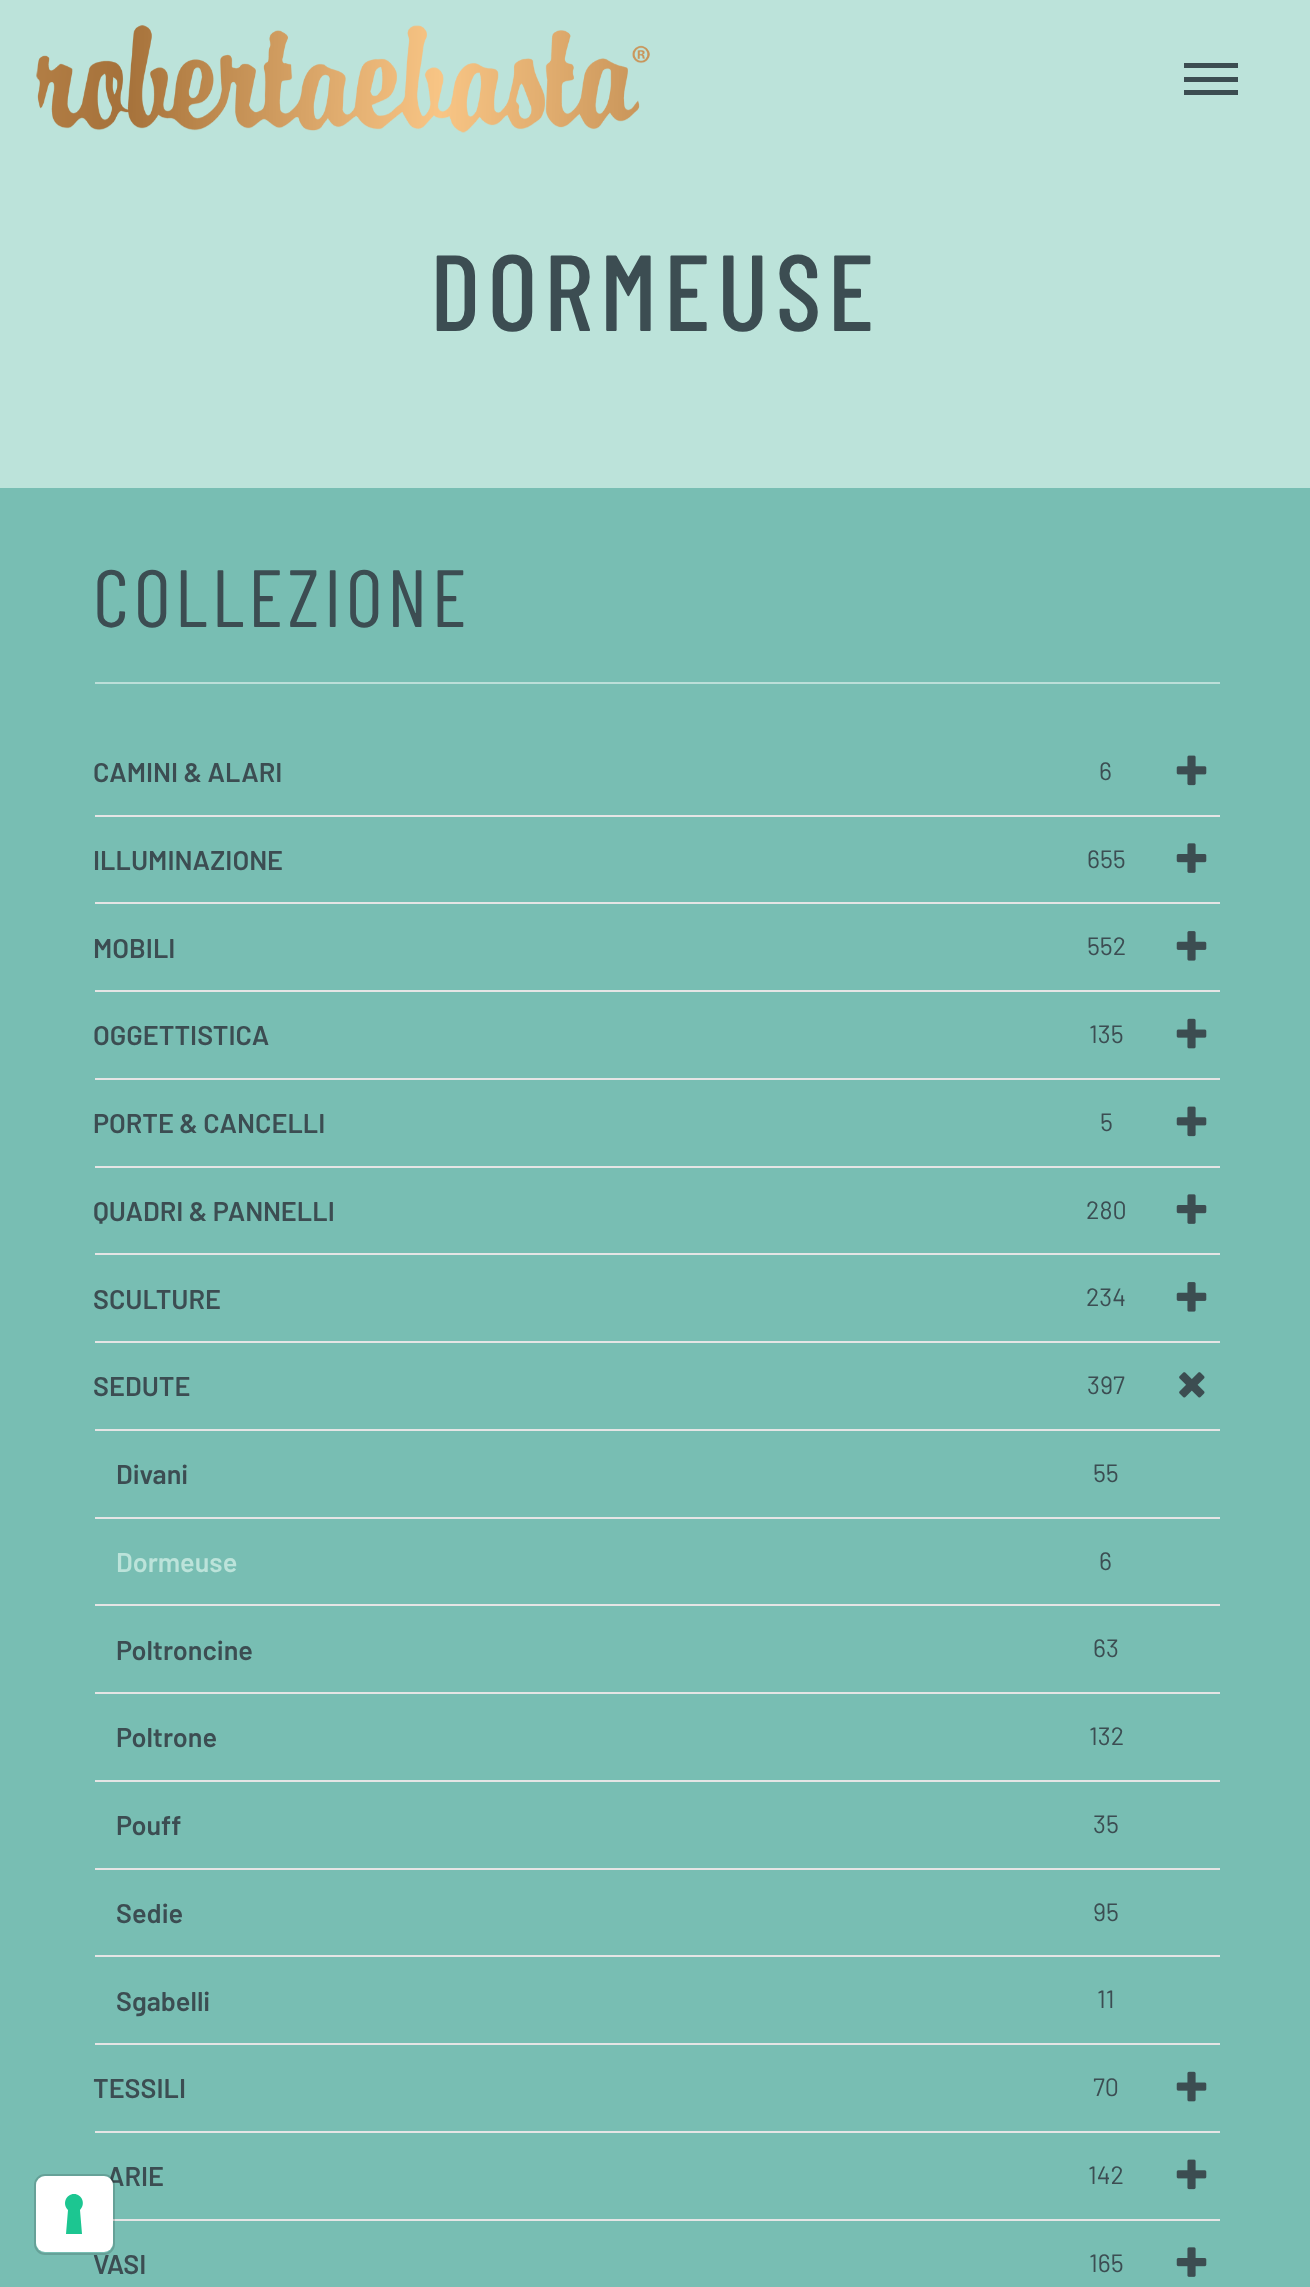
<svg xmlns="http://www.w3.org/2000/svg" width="1310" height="2287">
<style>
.a{font:500 108px Barlow Condensed;letter-spacing:6.75px;fill:#3c4d52}
.b{font:81px Barlow Condensed;letter-spacing:4.5px;fill:#3c4d52}
.c{font:600 27px Barlow;fill:#3c4d52}
.d{font:25px Barlow;fill:#3c4d52}
.e{font:600 27px Barlow;fill:#bce3da}
</style>
<rect width="100%" height="100%" fill="#bce3da"/>
<image href="1.png" x="36" y="25" width="614" height="108"/>
<path fill="#3c4d51" d="M1184 63h54v5H1184z"/>
<path fill="#3c4d51" d="M1184 77h54v5H1184z"/>
<path fill="#3c4d51" d="M1184 90h54v5H1184z"/>
<path fill="#78beb3" d="M0 488h1310v1799H0z"/>
<path fill="#bcdfd9" d="M95 682h1125v2H95z"/>
<path fill="#e5e5e5" d="M95 815h1125v2H95z"/>
<image href="2.png" x="1176" y="755" width="31" height="31"/>
<path fill="#e5e5e5" d="M95 902h1125v2H95z"/>
<image href="3.png" x="1176" y="843" width="31" height="30"/>
<path fill="#e5e5e5" d="M95 990h1125v2H95z"/>
<image href="4.png" x="1176" y="931" width="31" height="30"/>
<path fill="#e5e5e5" d="M95 1078h1125v2H95z"/>
<image href="5.png" x="1176" y="1018" width="31" height="31"/>
<path fill="#e5e5e5" d="M95 1166h1125v2H95z"/>
<image href="2.png" x="1176" y="1106" width="31" height="31"/>
<path fill="#e5e5e5" d="M95 1253h1125v2H95z"/>
<image href="3.png" x="1176" y="1194" width="31" height="30"/>
<path fill="#e5e5e5" d="M95 1341h1125v2H95z"/>
<image href="4.png" x="1176" y="1282" width="31" height="30"/>
<path fill="#e5e5e5" d="M95 1429h1125v2H95z"/>
<image href="6.png" x="1179" y="1372" width="26" height="26"/>
<path fill="#e5e5e5" d="M95 1517h1125v2H95z"/>
<path fill="#e5e5e5" d="M95 1604h1125v2H95z"/>
<path fill="#e5e5e5" d="M95 1692h1125v2H95z"/>
<path fill="#e5e5e5" d="M95 1780h1125v2H95z"/>
<path fill="#e5e5e5" d="M95 1868h1125v2H95z"/>
<path fill="#e5e5e5" d="M95 1955h1125v2H95z"/>
<path fill="#e5e5e5" d="M95 2043h1125v2H95z"/>
<path fill="#e5e5e5" d="M95 2131h1125v2H95z"/>
<image href="5.png" x="1176" y="2071" width="31" height="31"/>
<path fill="#e5e5e5" d="M113 2219h1107v2H113z"/>
<image href="2.png" x="1176" y="2159" width="31" height="31"/>
<image href="3.png" x="1176" y="2247" width="31" height="30"/>
<text class="a" x="430" y="331">DORMEUSE</text>
<text class="b" x="93" y="627">COLLEZIONE</text>
<text class="c" x="93" y="782">CAMINI &amp; ALARI</text>
<text class="d" x="1099" y="780">6</text>
<text class="c" x="93" y="870">ILLUMINAZIONE</text>
<text class="d" x="1087" y="868">655</text>
<text class="c" x="93" y="958">MOBILI</text>
<text class="d" x="1087" y="955">552</text>
<text class="c" x="93" y="1045">OGGETTISTICA</text>
<text class="d" x="1089" y="1043">135</text>
<text class="c" x="93" y="1133">PORTE &amp; CANCELLI</text>
<text class="d" x="1100" y="1131">5</text>
<text class="c" x="93" y="1221">QUADRI &amp; PANNELLI</text>
<text class="d" x="1086" y="1219">280</text>
<text class="c" x="93" y="1309">SCULTURE</text>
<text class="d" x="1086" y="1306">234</text>
<text class="c" x="93" y="1396">SEDUTE</text>
<text class="d" x="1087" y="1394">397</text>
<text class="c" x="116" y="1484">Divani</text>
<text class="d" x="1093" y="1482">55</text>
<text class="e" x="116" y="1572">Dormeuse</text>
<text class="d" x="1099" y="1570">6</text>
<text class="c" x="116" y="1660">Poltroncine</text>
<text class="d" x="1093" y="1657">63</text>
<text class="c" x="116" y="1747">Poltrone</text>
<text class="d" x="1089" y="1745">132</text>
<text class="c" x="116" y="1835">Pouff</text>
<text class="d" x="1093" y="1833">35</text>
<text class="c" x="116" y="1923">Sedie</text>
<text class="d" x="1093" y="1921">95</text>
<text class="c" x="116" y="2011">Sgabelli</text>
<text class="d" x="1097" y="2008">11</text>
<text class="c" x="93" y="2098">TESSILI</text>
<text class="d" x="1093" y="2096">70</text>
<text class="c" x="107" y="2186">ARIE</text>
<text class="d" x="1088" y="2184">142</text>
<text class="c" x="93" y="2274">VASI</text>
<rect fill="none" stroke="#00000026" stroke-width="2" x="35" y="2175" width="79" height="79" rx="10"/>
<rect fill="#fff" x="36" y="2176" width="77" height="76" rx="9"/>
<path fill="#1cc691" fill-rule="evenodd" d="M74 2194c8 0 12 10 6 16l2 24h-16l2-24c-6-6-2-16 6-16z"/>
<text class="d" x="1089" y="2272">165</text>
</svg>
